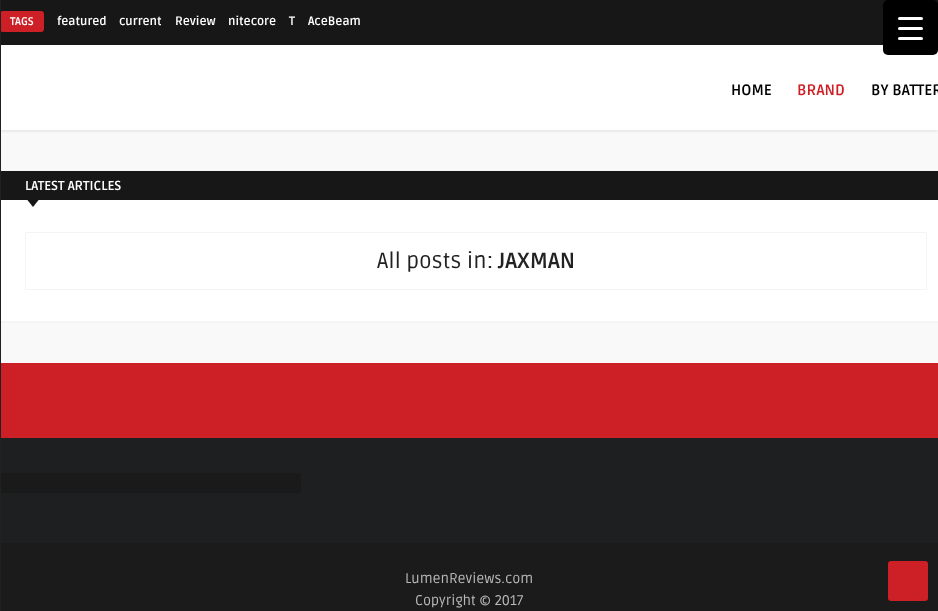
<svg xmlns="http://www.w3.org/2000/svg" width="938" height="611">
<style>
.a{font:bold 11px Ruda;fill:#fff}
.b{font:bold 12px Ruda;fill:#fff}
.c{font:bold 15px Ruda;fill:#000}
.d{font:bold 15px Ruda;fill:#cd2026}
.e{font:bold 13px Ruda;fill:#fff}
.f{font:22px Ruda;fill:#222}
.g{font:bold 22px Ruda;fill:#222}
.h{font:14px Ruda;fill:#b9b9b9}
</style>
<rect width="100%" height="100%" fill="#f9f9f9"/>
<path fill="#0000001a" filter="blur(1.5px)" d="M0 1h938v130H0z"/>
<path fill="#171717" d="M1 0h937v45H1z"/>
<rect fill="#cd2026" y="11" width="44" height="21" rx="3"/>
<path fill="#fff" d="M1 200h937v122H1z"/>
<path fill="none" stroke="#f4f4f4" d="M0.5 170.5h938v152H0.5z"/>
<path fill="#f1f1f1cc" d="M0 321h938v1H0z"/>
<path fill="#212121" d="M0 0h1v611H0z"/>
<path fill="#fff" d="M1 45h937v85H1z"/>
<rect fill="#000" x="883" width="55" height="55" rx="5"/>
<rect fill="#fff" x="898" y="27" width="25" height="3" rx="1.5"/>
<rect fill="#fff" x="898" y="17" width="25" height="3" rx="1.5"/>
<rect fill="#fff" x="898" y="37" width="25" height="3" rx="1.5"/>
<path fill="#171717" d="M1 171h937v29H1z"/>
<path fill="#171717" d="M25 197h16l-8 10z"/>
<path fill="none" stroke="#f4f4f4" d="M25.5 232.5h901v57H25.5z"/>
<path fill="#1e1f20" d="M1 438h937v105H1z"/>
<path fill="#cd2026" d="M1 363h937v75H1z"/>
<path fill="#1a1a1b" d="M1 473h300v20H1z"/>
<path fill="#1b1b1c" d="M1 543h937v68H1z"/>
<rect fill="#cd2026" x="888" y="561" width="40" height="40" rx="3"/>
<text class="a" x="10" y="25">TAGS</text>
<text class="b" x="57" y="25">featured</text>
<text class="b" x="119" y="25">current</text>
<text class="b" x="175" y="25">Review</text>
<text class="b" x="228" y="25">nitecore</text>
<text class="b" x="289" y="25">T</text>
<text class="b" x="308" y="25">AceBeam</text>
<text class="c" x="731" y="95">HOME</text>
<text class="d" x="797" y="95">BRAND</text>
<text class="c" x="871" y="95">BY BATTER</text>
<text class="e" x="25" y="190">LATEST ARTICLES</text>
<text class="f" x="377" y="268">All posts in:</text>
<text class="g" x="498" y="268">JAXMAN</text>
<text class="h" x="405" y="583">LumenReviews.com</text>
<text class="h" x="415" y="605">Copyright © 2017</text>
</svg>
